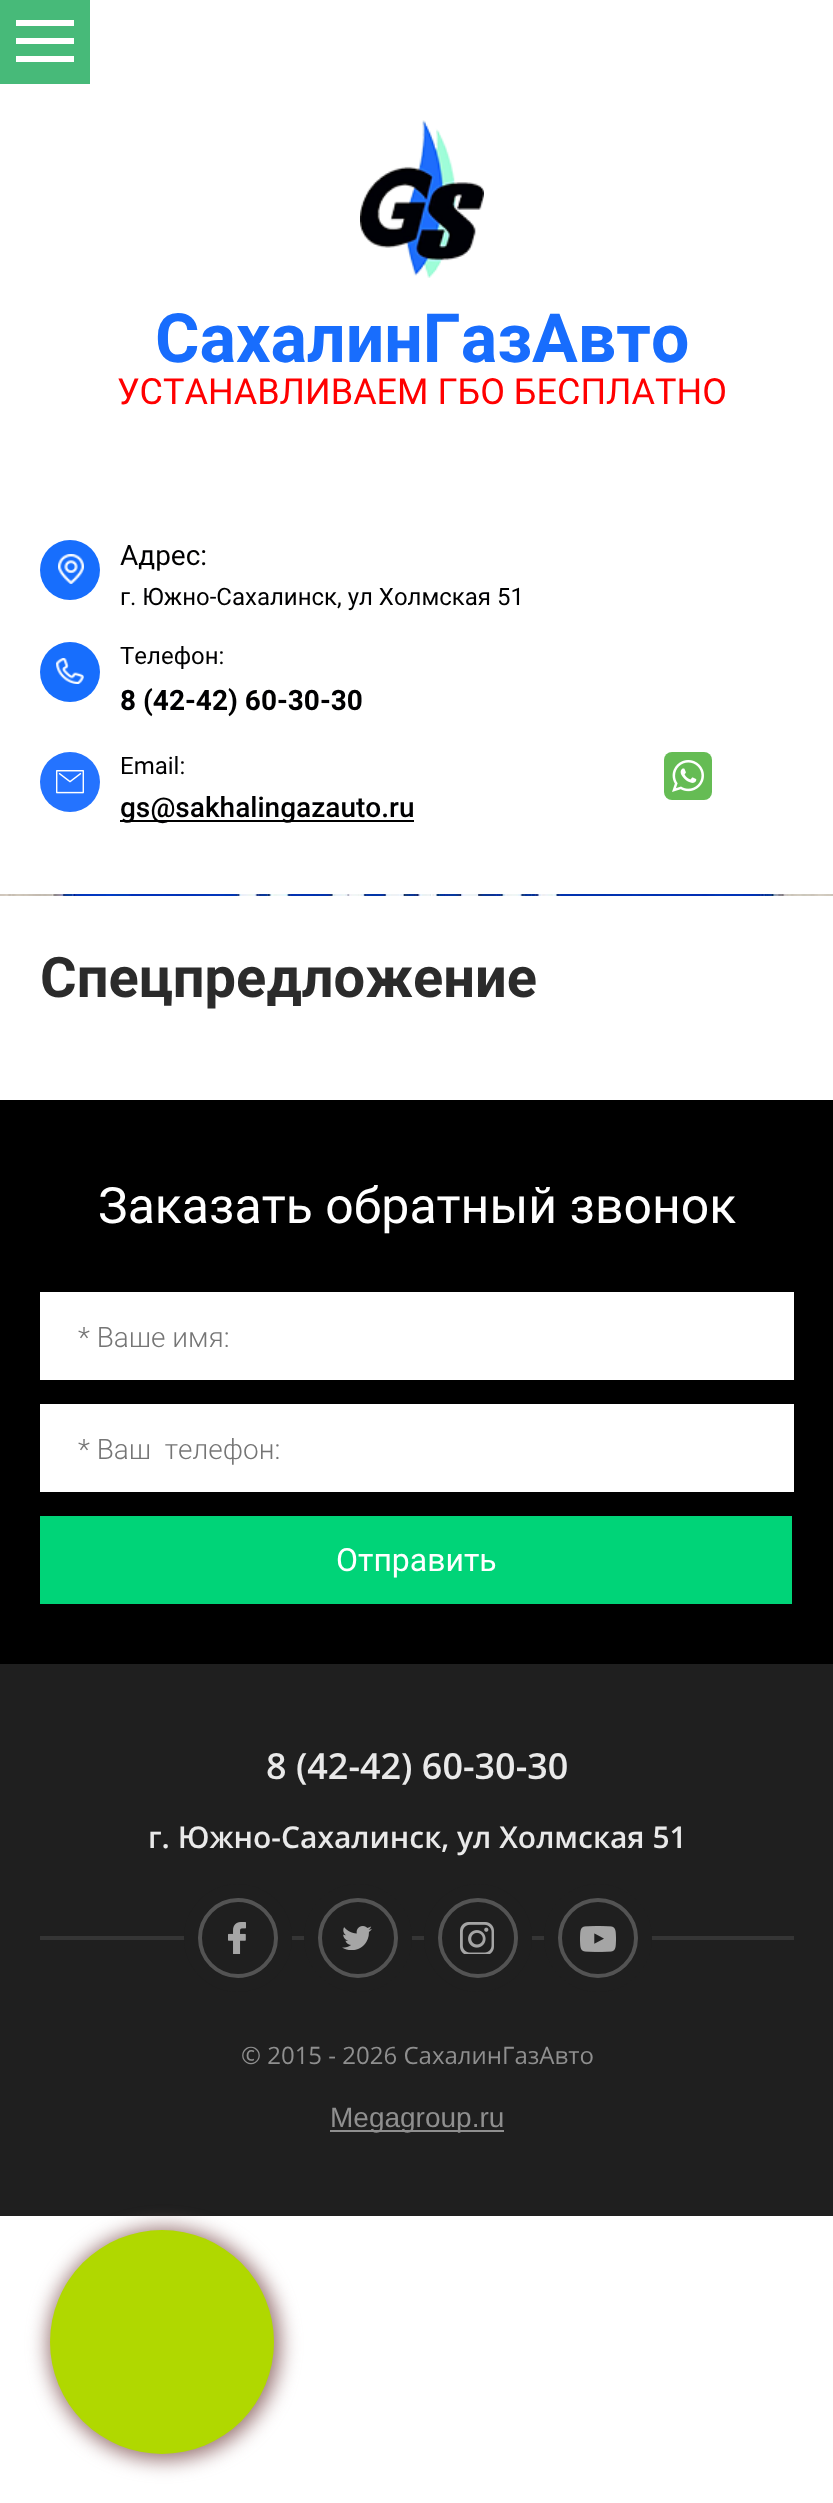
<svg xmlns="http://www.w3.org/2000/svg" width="833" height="2503">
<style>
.a{font:bold 68px Roboto;fill:#186dfd}
.b{font:36px Roboto;fill:#f00}
.c{font:28px Roboto;fill:#000001}
.d{font:24px Roboto;fill:#000001}
.e{font:bold 28px Roboto;fill:#000001}
.f{font:500 28px Roboto;fill:#000001}
.g{font:bold 56px Roboto;fill:#2b2b2b}
.h{font:50px Roboto;fill:#fff}
.i{font:300 28px Roboto;fill:#757575}
.j{font:32px Roboto;fill:#fff}
.k{font:600 36px Open Sans;fill:#e9e9e9}
.l{font:600 30px Open Sans;fill:#e9e9e9}
.m{font:24px Open Sans;fill:#8f8f8f}
.n{font:28px Liberation Sans;fill:#8f8f8f}
</style>
<rect width="100%" height="100%" fill="#fff"/>
<path fill="#47ba79" d="M0 0h90v84H0z"/>
<path fill="#fff" d="M16 20h58v6H16z"/>
<path fill="#fff" d="M16 38h58v6H16z"/>
<path fill="#fff" d="M16 56h58v6H16z"/>
<image href="1.png" x="360" y="120" width="124" height="158"/>
<circle fill="#176efd" cx="70" cy="570" r="30"/>
<image href="2.png" x="58" y="554" width="26" height="30"/>
<circle fill="#176efd" cx="70" cy="672" r="30"/>
<image href="3.png" x="56" y="658" width="28" height="26"/>
<circle fill="#2473ff" cx="70" cy="782" r="30"/>
<image href="4.png" x="56" y="770" width="28" height="24"/>
<path fill="#000" d="M120 820h294v2H120z"/>
<rect fill="#65bc54" x="664" y="752" width="48" height="48" rx="8"/>
<image href="5.png" x="672" y="760" width="32" height="32"/>
<image href="6.png" x="0" y="894" width="833" height="2"/>
<path fill="#000" d="M0 1100h833v564H0z"/>
<path fill="#fff" d="M40 1292h754v88H40z"/>
<path fill="#fff" d="M40 1404h754v88H40z"/>
<path fill="#00d478" d="M40 1516h752v88H40z"/>
<path fill="#1f1f1f" d="M0 1664h833v552H0z"/>
<path fill="#353535" d="M40 1936h754v4H40z"/>
<circle fill="none" stroke="#1f1f1f" stroke-width="14" cx="238" cy="1938" r="47"/>
<circle fill="#1f1f1f" cx="238" cy="1938" r="40"/>
<image href="7.png" x="228" y="1922" width="18" height="32"/>
<circle fill="none" stroke="#535353" stroke-width="4" cx="238" cy="1938" r="38"/>
<circle fill="none" stroke="#1f1f1f" stroke-width="14" cx="358" cy="1938" r="47"/>
<circle fill="#1f1f1f" cx="358" cy="1938" r="40"/>
<image href="8.png" x="342" y="1926" width="30" height="24"/>
<circle fill="none" stroke="#535353" stroke-width="4" cx="358" cy="1938" r="38"/>
<circle fill="none" stroke="#1f1f1f" stroke-width="14" cx="478" cy="1938" r="47"/>
<circle fill="#1f1f1f" cx="478" cy="1938" r="40"/>
<image href="9.png" x="460" y="1922" width="34" height="32"/>
<circle fill="none" stroke="#535353" stroke-width="4" cx="478" cy="1938" r="38"/>
<circle fill="none" stroke="#1f1f1f" stroke-width="14" cx="598" cy="1938" r="47"/>
<circle fill="#1f1f1f" cx="598" cy="1938" r="40"/>
<image href="10.png" x="580" y="1926" width="36" height="26"/>
<circle fill="none" stroke="#535353" stroke-width="4" cx="598" cy="1938" r="38"/>
<path fill="#8f8f8f" d="M330 2130h174v2H330z"/>
<rect fill="#987373" filter="blur(10px)" x="48" y="2228" width="232" height="232" rx="116"/>
<circle fill="#b0d800" cx="162" cy="2342" r="112"/>
<text class="a" x="155" y="362">СахалинГазАвто</text>
<text class="b" x="117" y="404">УСТАНАВЛИВАЕМ ГБО БЕСПЛАТНО</text>
<text class="c" x="120" y="565">Адрес:</text>
<text class="d" x="120" y="605">г. Южно-Сахалинск, ул Холмская 51</text>
<text class="d" x="120" y="664">Телефон:</text>
<text class="e" x="120" y="710">8 (42-42) 60-30-30</text>
<text class="d" x="120" y="774">Email:</text>
<text class="f" x="120" y="817">gs@sakhalingazauto.ru</text>
<text class="g" x="40" y="997">Спецпредложение</text>
<text class="h" x="98" y="1223">Заказать обратный звонок</text>
<text class="i" x="78" y="1347">* Ваше имя:</text>
<text class="i" xml:space="preserve" x="78" y="1459">* Ваш  телефон:</text>
<text class="j" x="336" y="1571">Отправить</text>
<text class="k" x="266" y="1779">8 (42-42) 60-30-30</text>
<text class="l" x="148" y="1848">г. Южно-Сахалинск, ул Холмская 51</text>
<text class="m" x="241" y="2064">© 2015 - 2026 СахалинГазАвто</text>
<text class="n" x="330" y="2127">Megagroup.ru</text>
</svg>
